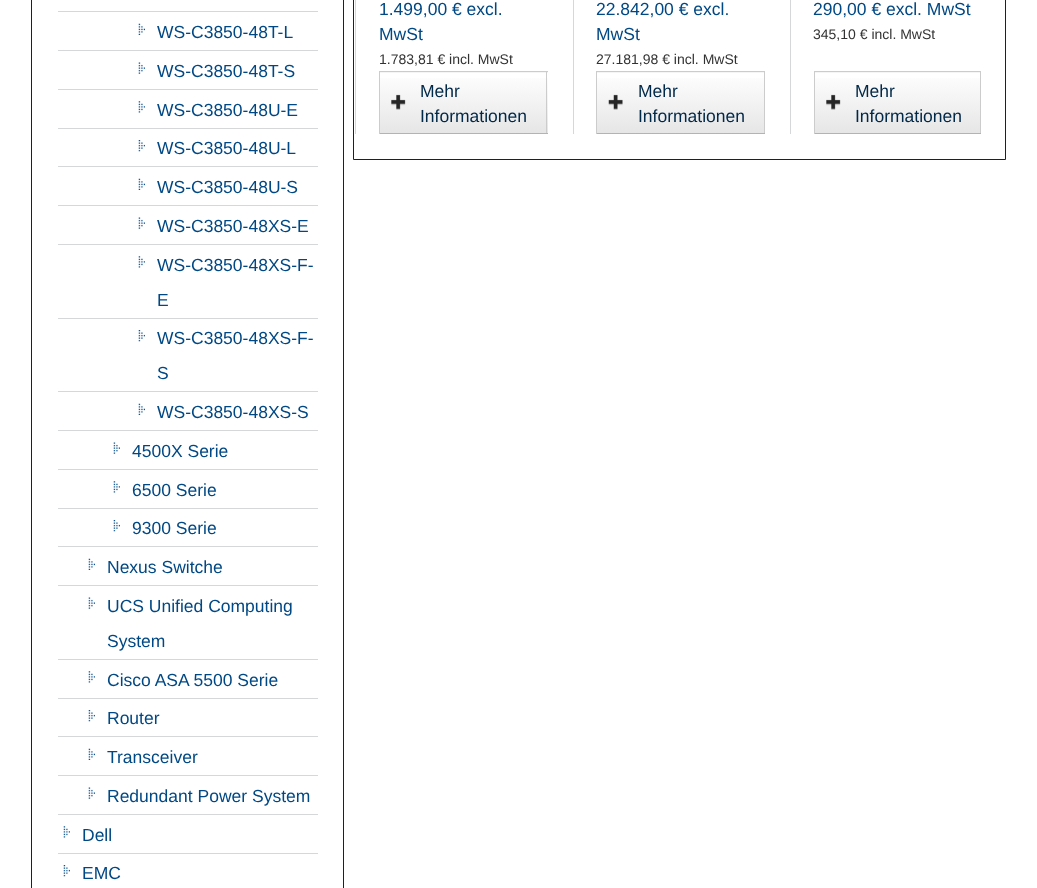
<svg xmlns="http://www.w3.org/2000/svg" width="1037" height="888">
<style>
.a{font:17.5px Liberation Sans;fill:#004884}
.b{font:14px Liberation Sans;fill:#323232}
.c{font:17.5px Liberation Sans;fill:#002848}
</style>
<defs>
<linearGradient id="g1" gradientUnits="userSpaceOnUse" x1="463" y1="72" x2="463" y2="133"><stop offset="0" stop-color="#fff"/><stop offset="1" stop-color="#e6e6e6"/></linearGradient>
<linearGradient id="g2" gradientUnits="userSpaceOnUse" x1="681" y1="72" x2="681" y2="133"><stop offset="0" stop-color="#fff"/><stop offset="1" stop-color="#e6e6e6"/></linearGradient>
<linearGradient id="g3" gradientUnits="userSpaceOnUse" x1="898" y1="72" x2="898" y2="133"><stop offset="0" stop-color="#fff"/><stop offset="1" stop-color="#e6e6e6"/></linearGradient>
</defs>
<rect width="100%" height="100%" fill="#fff"/>
<path fill="none" stroke="#002848" d="M31.5 -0.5h312v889H31.5z"/>
<image href="1.png" x="138" y="23" width="7" height="12"/>
<path fill="#d6d7d8" d="M58 11h260v1H58z"/>
<image href="2.png" x="138" y="62" width="7" height="12"/>
<path fill="#d6d7d8" d="M58 50h260v1H58z"/>
<image href="3.png" x="138" y="101" width="7" height="12"/>
<path fill="#d6d7d8" d="M58 89h260v1H58z"/>
<image href="4.png" x="138" y="140" width="7" height="12"/>
<path fill="#d6d7d8" d="M58 128h260v1H58z"/>
<image href="1.png" x="138" y="178" width="7" height="12"/>
<path fill="#d6d7d8" d="M58 166h260v1H58z"/>
<image href="2.png" x="138" y="217" width="7" height="12"/>
<path fill="#d6d7d8" d="M58 205h260v1H58z"/>
<image href="3.png" x="138" y="256" width="7" height="12"/>
<path fill="#d6d7d8" d="M58 244h260v1H58z"/>
<image href="4.png" x="138" y="330" width="7" height="12"/>
<path fill="#d6d7d8" d="M58 318h260v1H58z"/>
<image href="1.png" x="138" y="403" width="7" height="12"/>
<path fill="#d6d7d8" d="M58 391h260v1H58z"/>
<image href="2.png" x="113" y="442" width="7" height="12"/>
<path fill="#d6d7d8" d="M58 430h260v1H58z"/>
<image href="3.png" x="113" y="481" width="7" height="12"/>
<path fill="#d6d7d8" d="M58 469h260v1H58z"/>
<image href="4.png" x="113" y="520" width="7" height="12"/>
<path fill="#d6d7d8" d="M58 508h260v1H58z"/>
<image href="1.png" x="88" y="558" width="7" height="12"/>
<path fill="#d6d7d8" d="M58 546h260v1H58z"/>
<image href="2.png" x="88" y="597" width="7" height="12"/>
<path fill="#d6d7d8" d="M58 585h260v1H58z"/>
<image href="3.png" x="88" y="671" width="7" height="12"/>
<path fill="#d6d7d8" d="M58 659h260v1H58z"/>
<image href="4.png" x="88" y="710" width="7" height="12"/>
<path fill="#d6d7d8" d="M58 698h260v1H58z"/>
<image href="1.png" x="88" y="748" width="7" height="12"/>
<path fill="#d6d7d8" d="M58 736h260v1H58z"/>
<image href="2.png" x="88" y="787" width="7" height="12"/>
<path fill="#d6d7d8" d="M58 775h260v1H58z"/>
<image href="5.png" x="63" y="826" width="7" height="12"/>
<path fill="#d6d7d8" d="M58 814h260v1H58z"/>
<image href="6.png" x="63" y="865" width="7" height="12"/>
<path fill="#d6d7d8" d="M58 853h260v1H58z"/>
<path fill="none" stroke="#002848" d="M353.5 -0.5h652v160H353.5z"/>
<path fill="#d6d7d8" d="M355 0h1v134H355z"/>
<path fill="#d6d7d8" d="M573 0h1v134H573z"/>
<path fill="#f5f5f5" d="M380 72h168v1H380z"/>
<path fill="url(#g1)" d="M380 78h168v55H380z"/>
<path fill="#ccc" d="M379 71h169v1H379z"/>
<path fill="#ccc" d="M546 71h1v63H546z"/>
<path fill="#b3b3b3" d="M379 133h169v1H379z"/>
<path fill="#ccc" d="M379 71h1v63H379z"/>
<image href="7.png" x="391" y="94" width="15" height="16"/>
<path fill="#d6d7d8" d="M790 0h1v134H790z"/>
<path fill="#f5f5f5" d="M597 72h167v1H597z"/>
<path fill="url(#g2)" d="M597 78h167v55H597z"/>
<path fill="#ccc" d="M596 71h169v1H596z"/>
<path fill="#ccc" d="M764 71h1v63H764z"/>
<path fill="#b3b3b3" d="M596 133h169v1H596z"/>
<path fill="#ccc" d="M596 71h1v63H596z"/>
<image href="8.png" x="608" y="94" width="15" height="16"/>
<path fill="#f5f5f5" d="M815 72h165v1H815z"/>
<path fill="url(#g3)" d="M815 78h165v55H815z"/>
<path fill="#ccc" d="M814 71h167v1H814z"/>
<path fill="#ccc" d="M980 71h1v63H980z"/>
<path fill="#b3b3b3" d="M814 133h167v1H814z"/>
<path fill="#ccc" d="M814 71h1v63H814z"/>
<image href="7.png" x="826" y="94" width="15" height="16"/>
<text class="a" x="157" y="38">WS-C3850-48T-L</text>
<text class="a" x="157" y="77">WS-C3850-48T-S</text>
<text class="a" x="157" y="116">WS-C3850-48U-E</text>
<text class="a" x="157" y="154">WS-C3850-48U-L</text>
<text class="a" x="157" y="193">WS-C3850-48U-S</text>
<text class="a" x="157" y="232">WS-C3850-48XS-E</text>
<text class="a" x="157" y="271">WS-C3850-48XS-F-</text>
<text class="a" x="157" y="306">E</text>
<text class="a" x="157" y="344">WS-C3850-48XS-F-</text>
<text class="a" x="157" y="379">S</text>
<text class="a" x="157" y="418">WS-C3850-48XS-S</text>
<text class="a" x="132" y="457">4500X Serie</text>
<text class="a" x="132" y="496">6500 Serie</text>
<text class="a" x="132" y="534">9300 Serie</text>
<text class="a" x="107" y="573">Nexus Switche</text>
<text class="a" x="107" y="612">UCS Unified Computing</text>
<text class="a" x="107" y="647">System</text>
<text class="a" x="107" y="686">Cisco ASA 5500 Serie</text>
<text class="a" x="107" y="724">Router</text>
<text class="a" x="107" y="763">Transceiver</text>
<text class="a" x="107" y="802">Redundant Power System</text>
<text class="a" x="82" y="841">Dell</text>
<text class="a" x="82" y="879">EMC</text>
<text class="a" x="379" y="15">1.499,00 € excl.</text>
<text class="a" x="379" y="40">MwSt</text>
<text class="b" x="379" y="64">1.783,81 € incl. MwSt</text>
<text class="c" x="420" y="97">Mehr</text>
<text class="c" x="420" y="122">Informationen</text>
<text class="a" x="596" y="15">22.842,00 € excl.</text>
<text class="a" x="596" y="40">MwSt</text>
<text class="b" x="596" y="64">27.181,98 € incl. MwSt</text>
<text class="c" x="638" y="97">Mehr</text>
<text class="c" x="638" y="122">Informationen</text>
<text class="a" x="813" y="15">290,00 € excl. MwSt</text>
<text class="b" x="813" y="39">345,10 € incl. MwSt</text>
<text class="c" x="855" y="97">Mehr</text>
<text class="c" x="855" y="122">Informationen</text>
</svg>
